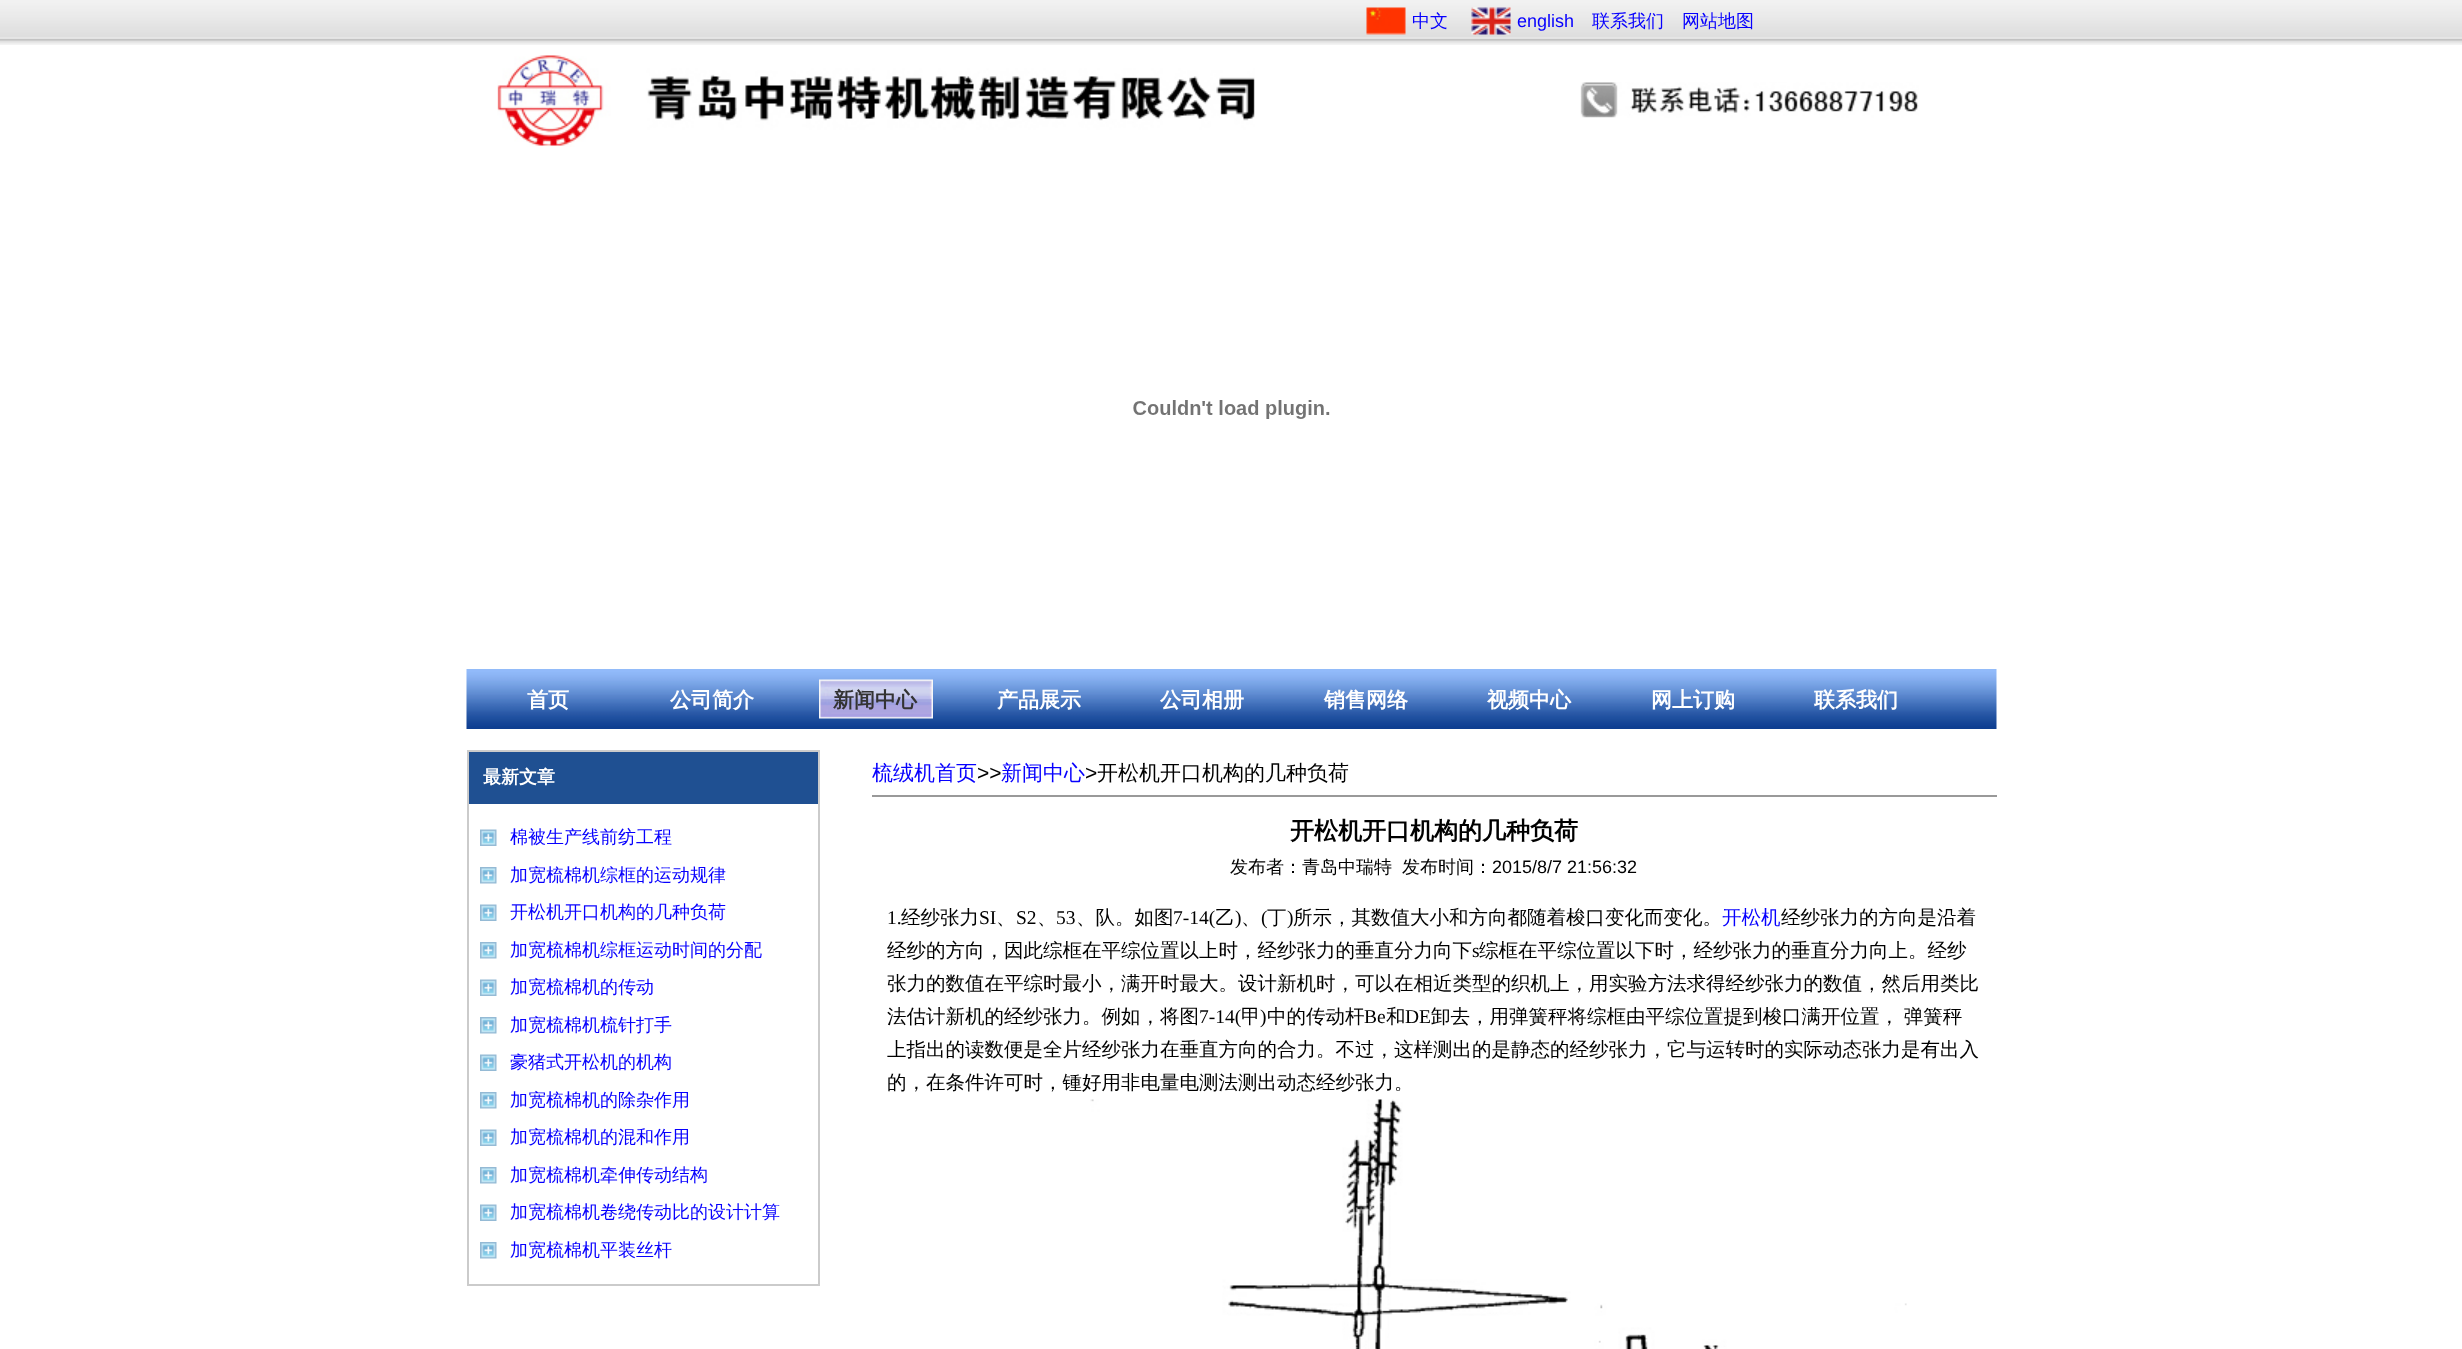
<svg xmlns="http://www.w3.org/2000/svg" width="2462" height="1349">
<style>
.a{font:500 18px WenQuanYi Zen Hei;fill:#0700fe}
.b{font:18px Liberation Sans;fill:#0700fe}
.c{font:bold 21px WenQuanYi Zen Hei;fill:#fff}
.d{font:bold 21px WenQuanYi Zen Hei;fill:#333}
.e{font:bold 18px WenQuanYi Zen Hei;fill:#fff}
.f{font:500 21px WenQuanYi Zen Hei;fill:#0700fe}
.g{font:21px Liberation Sans;fill:#000}
.h{font:500 21px WenQuanYi Zen Hei;fill:#000}
.i{font:bold 24px WenQuanYi Zen Hei;fill:#000}
.j{font:500 18px WenQuanYi Zen Hei;fill:#000}
.k{font:18px Liberation Sans;fill:#000}
.l{font:19.5px Liberation Serif;fill:#000}
.m{font:500 19.5px WenQuanYi Zen Hei;fill:#000}
.n{font:500 19.5px WenQuanYi Zen Hei;fill:#0700fe}
</style>
<rect width="100%" height="100%" fill="#fff"/>
<image href="1.png" x="0" y="0" width="2462" height="45"/>
<image href="2.png" x="1366" y="7" width="40" height="28"/>
<image href="3.png" x="1471" y="7" width="40" height="28"/>
<image href="4.png" x="497" y="55" width="758" height="92"/>
<image href="5.png" x="1580" y="82" width="339" height="36"/>
<image href="6.png" x="1133" y="400" width="197" height="19"/>
<image href="7.png" x="466" y="669" width="1531" height="60"/>
<image href="8.png" x="819" y="679" width="114" height="40"/>
<path fill="#1f5092" d="M469 752h349v52H469z"/>
<path fill="#cbcbcb" d="M467 750h352v2H467z"/>
<path fill="#cbcbcb" d="M818 750h2v536H818z"/>
<path fill="#cbcbcb" d="M467 750h2v54H467z"/>
<path fill="#cbcbcb" d="M467 1284h352v2H467z"/>
<path fill="#cbcbcb" d="M467 804h2v482H467z"/>
<image href="9.png" x="480" y="829" width="17" height="17"/>
<image href="10.png" x="480" y="867" width="17" height="17"/>
<image href="9.png" x="480" y="904" width="17" height="17"/>
<image href="10.png" x="480" y="942" width="17" height="17"/>
<image href="9.png" x="480" y="979" width="17" height="17"/>
<image href="10.png" x="480" y="1017" width="17" height="17"/>
<image href="9.png" x="480" y="1054" width="17" height="17"/>
<image href="10.png" x="480" y="1092" width="17" height="17"/>
<image href="9.png" x="480" y="1129" width="17" height="17"/>
<image href="10.png" x="480" y="1167" width="17" height="17"/>
<image href="9.png" x="480" y="1204" width="17" height="17"/>
<image href="10.png" x="480" y="1242" width="17" height="17"/>
<path fill="#999" d="M872 795h1125v2H872z"/>
<image href="11.png" x="1090" y="1099" width="817" height="250"/>
<text class="a" x="1412" y="27">中文</text>
<text class="b" x="1517" y="27">english</text>
<text class="a" x="1592" y="27">联系我们</text>
<text class="a" x="1682" y="27">网站地图</text>
<text class="c" x="527" y="707">首页</text>
<text class="c" x="670" y="707">公司简介</text>
<text class="d" x="833" y="707">新闻中心</text>
<text class="c" x="997" y="707">产品展示</text>
<text class="c" x="1160" y="707">公司相册</text>
<text class="c" x="1324" y="707">销售网络</text>
<text class="c" x="1487" y="707">视频中心</text>
<text class="c" x="1651" y="707">网上订购</text>
<text class="c" x="1814" y="707">联系我们</text>
<text class="e" x="483" y="783">最新文章</text>
<text class="a" x="510" y="843">棉被生产线前纺工程</text>
<text class="a" x="510" y="881">加宽梳棉机综框的运动规律</text>
<text class="a" x="510" y="918">开松机开口机构的几种负荷</text>
<text class="a" x="510" y="956">加宽梳棉机综框运动时间的分配</text>
<text class="a" x="510" y="993">加宽梳棉机的传动</text>
<text class="a" x="510" y="1031">加宽梳棉机梳针打手</text>
<text class="a" x="510" y="1068">豪猪式开松机的机构</text>
<text class="a" x="510" y="1106">加宽梳棉机的除杂作用</text>
<text class="a" x="510" y="1143">加宽梳棉机的混和作用</text>
<text class="a" x="510" y="1181">加宽梳棉机牵伸传动结构</text>
<text class="a" x="510" y="1218">加宽梳棉机卷绕传动比的设计计算</text>
<text class="a" x="510" y="1256">加宽梳棉机平装丝杆</text>
<text class="f" x="872" y="780">梳绒机首页</text>
<text class="g" x="977" y="780">&gt;&gt;</text>
<text class="f" x="1001" y="780">新闻中心</text>
<text class="g" x="1085" y="780">&gt;</text>
<text class="h" x="1097" y="780">开松机开口机构的几种负荷</text>
<text class="i" x="1290" y="839">开松机开口机构的几种负荷</text>
<text class="j" x="1230" y="873">发布者：青岛中瑞特</text>
<text class="j" x="1402" y="873">发布时间：</text>
<text class="k" x="1492" y="873">2015/8/7 21:56:32</text>
<text class="l" x="887" y="924">1.</text>
<text class="m" x="901" y="924">经纱张力</text>
<text class="l" x="979" y="924">SI</text>
<text class="m" x="996" y="924">、</text>
<text class="l" x="1016" y="924">S2</text>
<text class="m" x="1037" y="924">、</text>
<text class="l" x="1056" y="924">53</text>
<text class="m" x="1076" y="924">、队。如图</text>
<text class="l" x="1173" y="924">7-14(</text>
<text class="m" x="1215" y="924">乙</text>
<text class="l" x="1235" y="924">)</text>
<text class="m" x="1241" y="924">、</text>
<text class="l" x="1261" y="924">(</text>
<text class="m" x="1267" y="924">丁</text>
<text class="l" x="1287" y="924">)</text>
<text class="m" x="1293" y="924">所示，其数值大小和方向都随着梭口变化而变化。</text>
<text class="n" x="1722" y="924">开松机</text>
<text class="m" x="1781" y="924">经纱张力的方向是沿着</text>
<text class="m" x="887" y="957">经纱的方向，因此综框在平综位置以上时，经纱张力的垂直分力向下</text>
<text class="l" x="1472" y="957">s</text>
<text class="m" x="1479" y="957">综框在平综位置以下时，经纱张力的垂直分力向上。经纱</text>
<text class="m" x="887" y="990">张力的数值在平综时最小，满开时最大。设计新机时，可以在相近类型的织机上，用实验方法求得经纱张力的数值，然后用类比</text>
<text class="m" x="887" y="1023">法估计新机的经纱张力。例如，将图</text>
<text class="l" x="1199" y="1023">7-14(</text>
<text class="m" x="1241" y="1023">甲</text>
<text class="l" x="1260" y="1023">)</text>
<text class="m" x="1267" y="1023">中的传动杆</text>
<text class="l" x="1364" y="1023">Be</text>
<text class="m" x="1386" y="1023">和</text>
<text class="l" x="1405" y="1023">DE</text>
<text class="m" x="1431" y="1023" word-spacing="-1">卸去，用弹簧秤将综框由平综位置提到梭口满开位置， 弹簧秤</text>
<text class="m" x="887" y="1056">上指出的读数便是全片经纱张力在垂直方向的合力。不过，这样测出的是静态的经纱张力，它与运转时的实际动态张力是有出入</text>
<text class="m" x="887" y="1089">的，在条件许可时，锺好用非电量电测法测出动态经纱张力。</text>
</svg>
